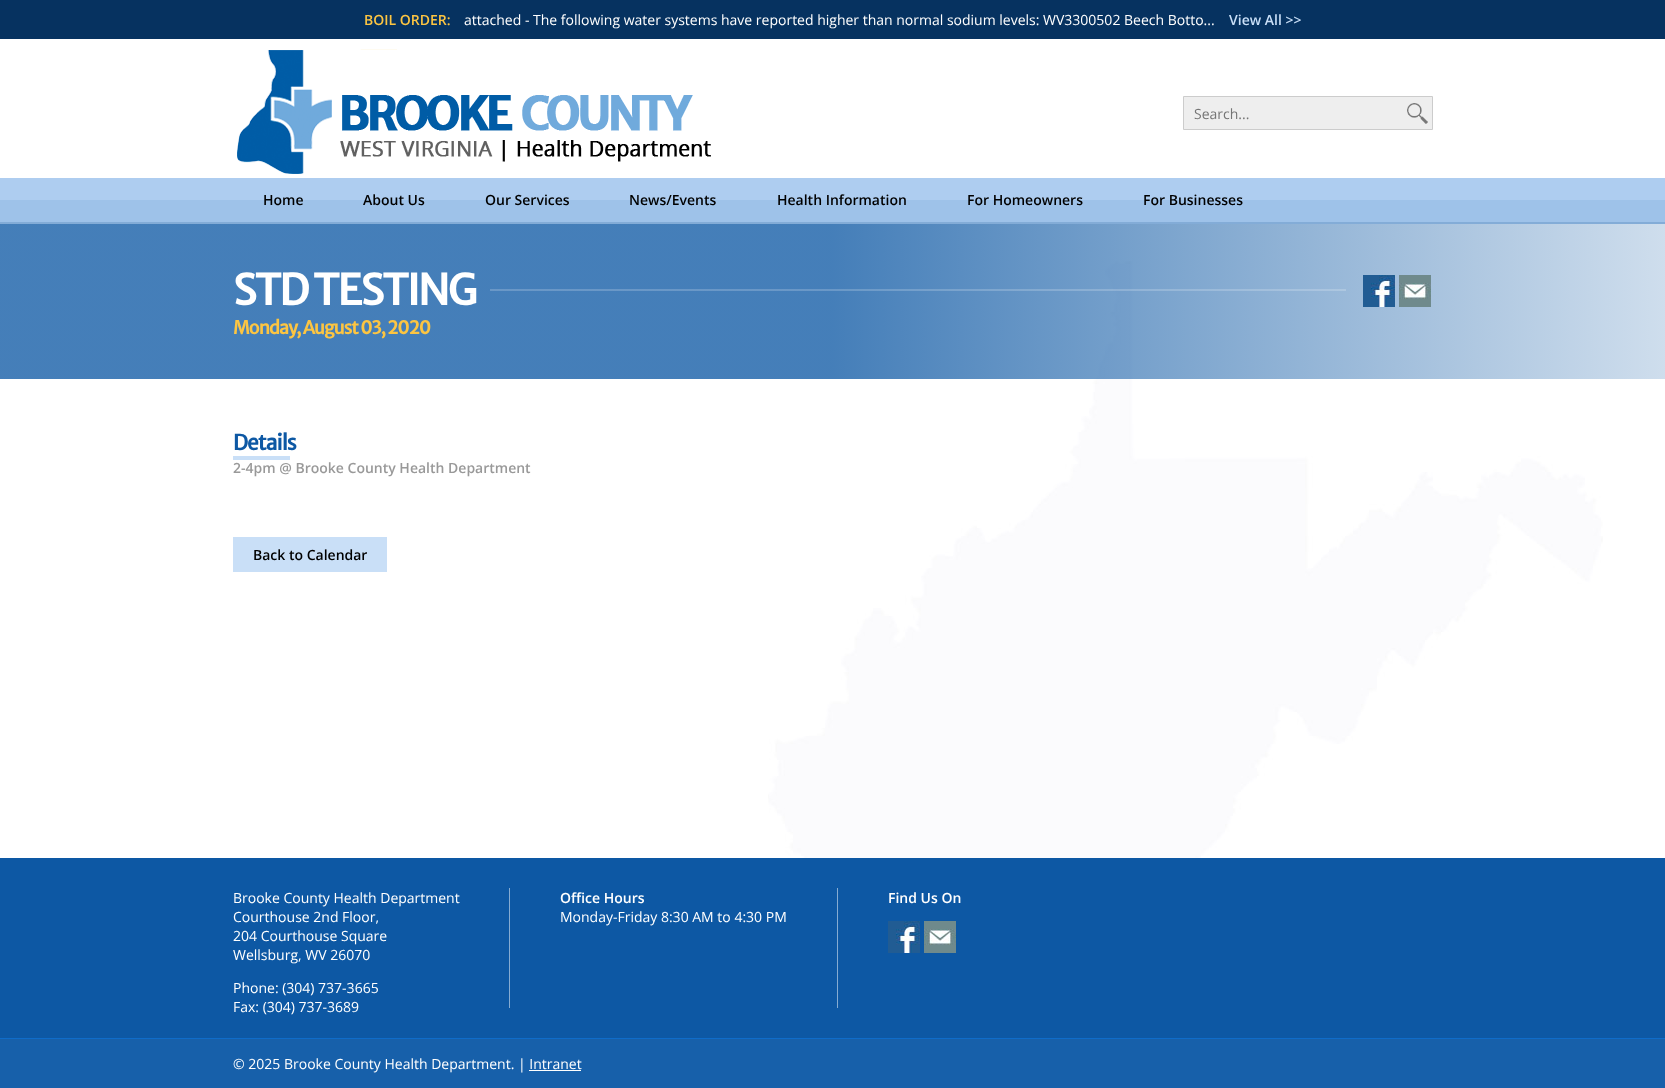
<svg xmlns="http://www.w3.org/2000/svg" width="1665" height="1088">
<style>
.a{font:600 14px Open Sans;fill:#fcc542}
.b{font:14px Open Sans;fill:#fff}
.c{font:600 14px Open Sans;fill:#c9dff7}
.d{font:14px Open Sans;fill:#757575}
.e{font:600 14px Open Sans;fill:#000}
.f{font:bold 42px Merriweather Sans;letter-spacing:-2px;fill:#fff}
.g{font:bold 18px Merriweather Sans;letter-spacing:-1px;fill:#fcc542}
.h{font:bold 21px Merriweather Sans;letter-spacing:-1px;fill:#0d58a4}
.i{font:600 14px Open Sans;fill:#999}
.j{font:600 14px Open Sans;fill:#fff}
</style>
<defs>
<linearGradient id="g1" gradientUnits="userSpaceOnUse" x1="0" y1="302" x2="1665" y2="301"><stop offset="0" stop-color="#0d58a4" stop-opacity="0.77"/><stop offset="0.5" stop-color="#0d58a4" stop-opacity="0.77"/><stop offset="1" stop-color="#0d58a4" stop-opacity="0.2"/></linearGradient>
</defs>
<rect width="100%" height="100%" fill="#fff"/>
<path fill="#063260" d="M0 0h1665v39H0z"/>
<image href="1.png" x="237" y="49" width="474" height="125"/>
<path fill="#eee" stroke="#ccc" d="M1183.5 96.5h249v33H1183.5z"/>
<image href="2.png" x="1407" y="103" width="21" height="21"/>
<path fill="#aecdf0" d="M0 178h1665v22H0z"/>
<path fill="#9ec2e9" d="M0 200h1665v22H0z"/>
<path fill="#83acd7" d="M0 222h1665v2H0z"/>
<image href="3.png" x="768" y="261" width="835" height="597"/>
<path fill="url(#g1)" d="M0 224h1665v155H0z"/>
<path fill="#ffffff33" d="M490 289h856v2H490z"/>
<image href="4.png" x="1363" y="275" width="32" height="32"/>
<image href="5.png" x="1399" y="275" width="32" height="32"/>
<path fill="#c9dff7" d="M233 456h57v4H233z"/>
<path fill="#c9dff7" d="M233 537h154v35H233z"/>
<path fill="#0d58a4" d="M0 858h1665v180H0z"/>
<path fill="#86acd2" d="M509 888h1v120H509z"/>
<path fill="#86acd2" d="M837 888h1v120H837z"/>
<image href="4.png" x="888" y="921" width="32" height="32"/>
<image href="5.png" x="924" y="921" width="32" height="32"/>
<path fill="#1760aa" d="M0 1039h1665v49H0z"/>
<path fill="#0f6cc9" d="M0 1038h1665v1H0z"/>
<path fill="#fff" d="M529 1070h52v1H529z"/>
<text class="a" x="364" y="25">BOIL ORDER:</text>
<text class="b" x="464" y="25">attached - The following water systems have reported higher than normal sodium levels: WV3300502 Beech Botto...</text>
<text class="c" x="1229" y="25">View All &gt;&gt;</text>
<text class="d" x="1194" y="119">Search...</text>
<text class="e" x="263" y="205">Home</text>
<text class="e" x="363" y="205">About Us</text>
<text class="e" x="485" y="205">Our Services</text>
<text class="e" x="629" y="205">News/Events</text>
<text class="e" x="777" y="205">Health Information</text>
<text class="e" x="967" y="205">For Homeowners</text>
<text class="e" x="1143" y="205">For Businesses</text>
<text class="f" x="233" y="305">STD TESTING</text>
<text class="g" x="233" y="334">Monday, August 03, 2020</text>
<text class="h" x="233" y="450">Details</text>
<text class="i" x="233" y="473">2-4pm @ Brooke County Health Department</text>
<text class="e" x="253" y="560">Back to Calendar</text>
<text class="b" x="233" y="903">Brooke County Health Department</text>
<text class="b" x="233" y="922">Courthouse 2nd Floor,</text>
<text class="b" x="233" y="941">204 Courthouse Square</text>
<text class="b" x="233" y="960">Wellsburg, WV 26070</text>
<text class="b" x="233" y="993">Phone: (304) 737-3665</text>
<text class="b" x="233" y="1012">Fax: (304) 737-3689</text>
<text class="j" x="560" y="903">Office Hours</text>
<text class="b" x="560" y="922">Monday-Friday 8:30 AM to 4:30 PM</text>
<text class="j" x="888" y="903">Find Us On</text>
<text class="b" x="233" y="1069">© 2025 Brooke County Health Department. | Intranet</text>
</svg>
